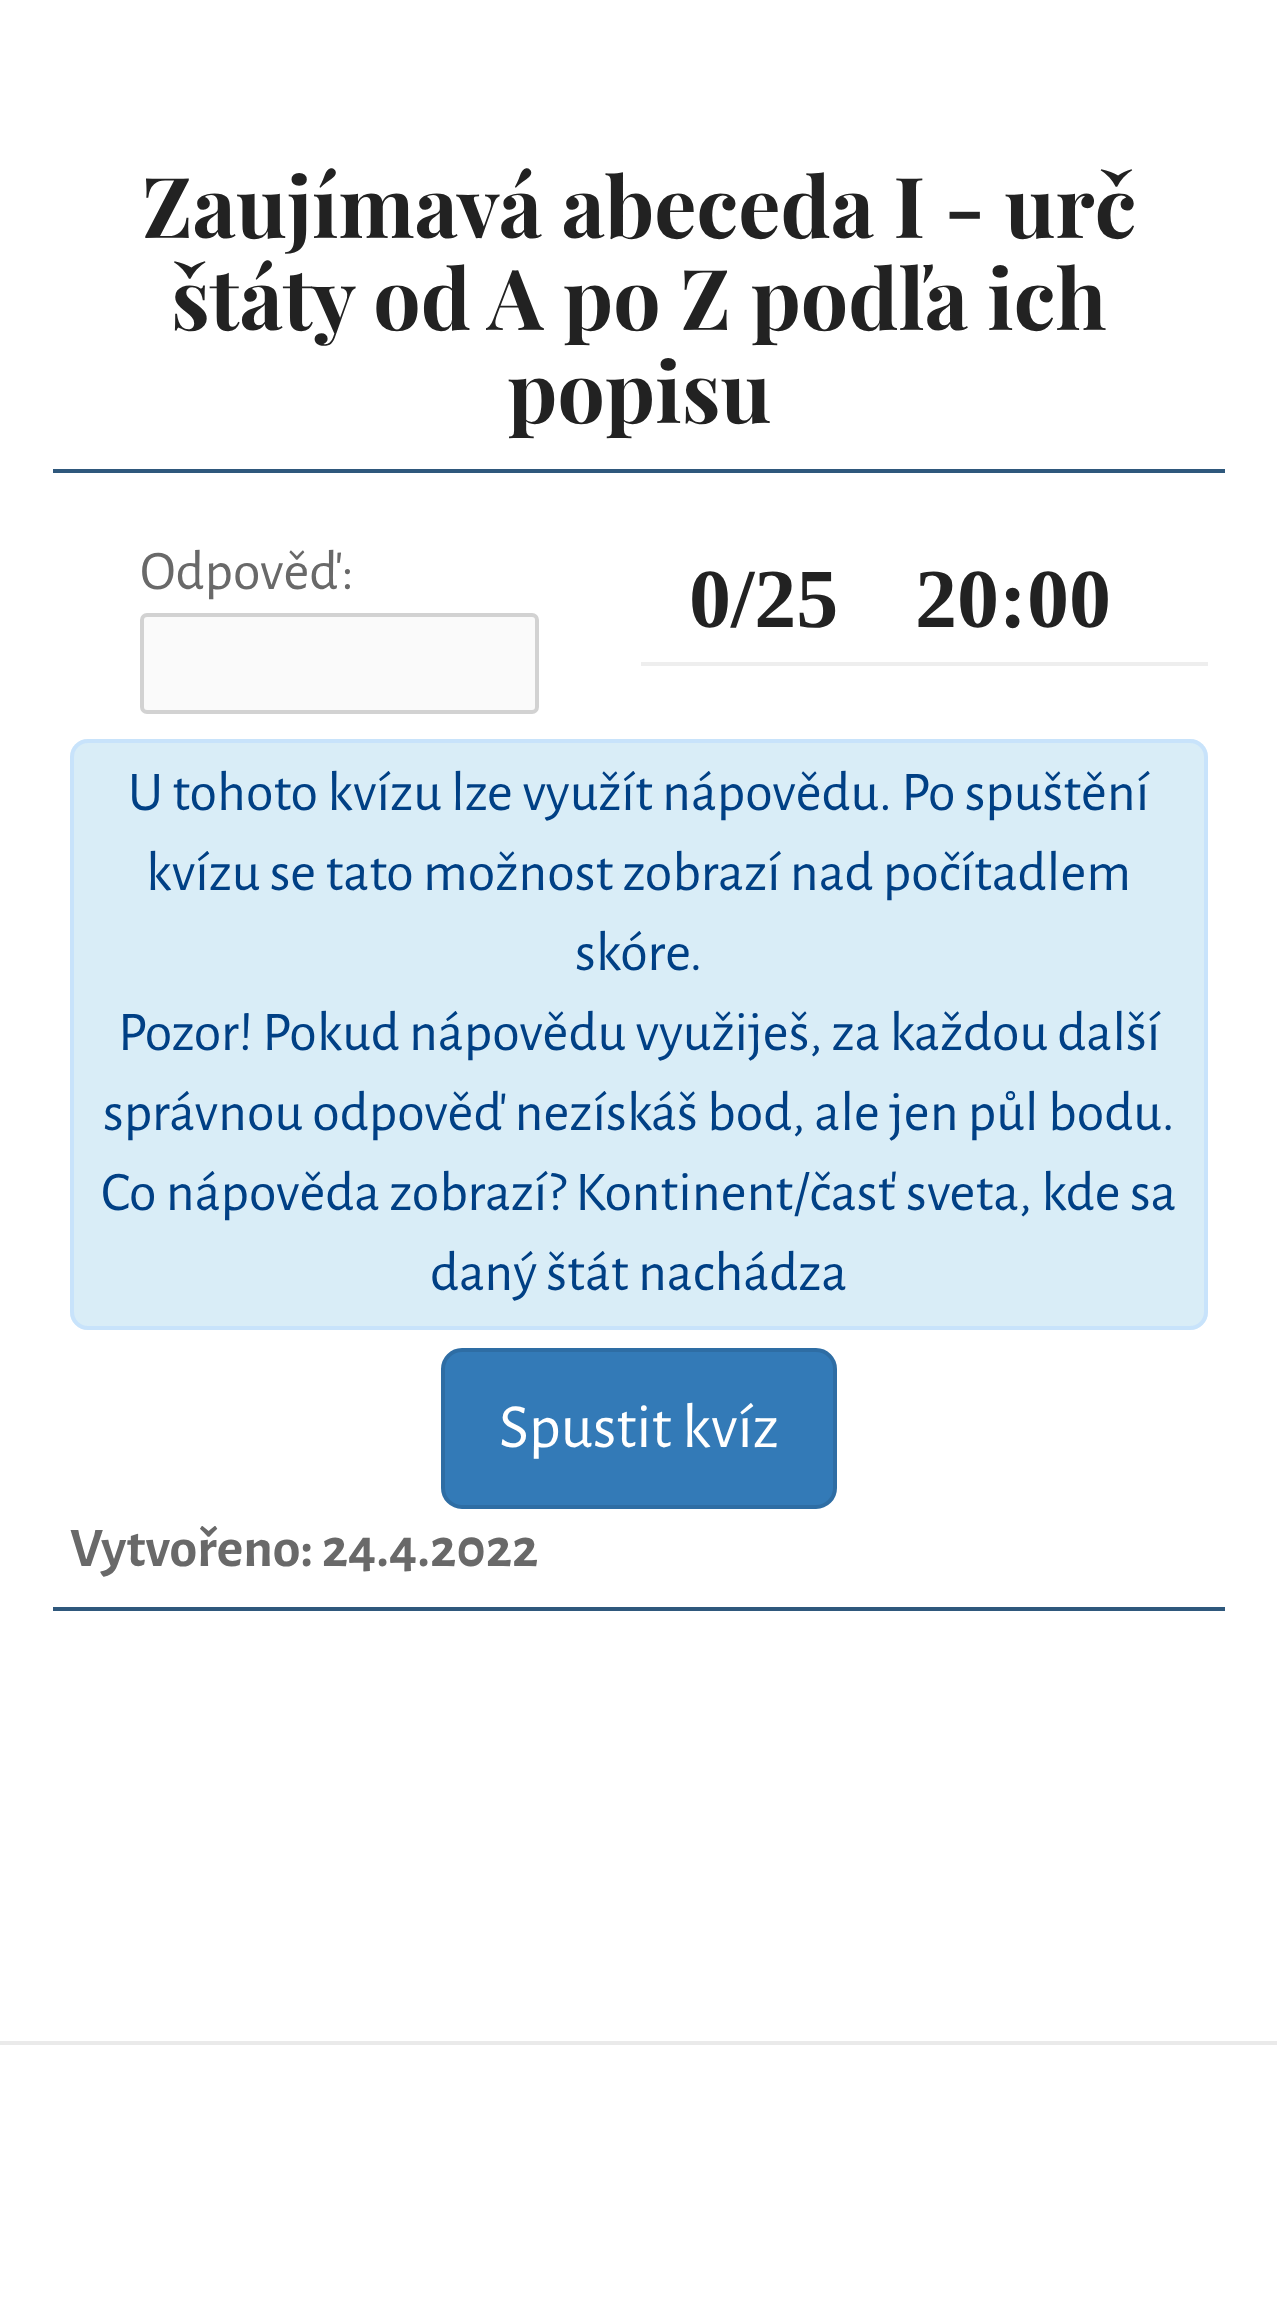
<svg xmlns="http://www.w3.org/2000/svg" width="1277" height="2298">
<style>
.a{font:bold 84px Playfair Display;fill:#222}
.b{font:56px Alegreya Sans;fill:#696969}
.c{font:bold 84px Liberation Serif;fill:#222}
.d{font:56px Alegreya Sans;fill:#004085}
.e{font:63px Alegreya Sans;fill:#fff}
.f{font:bold 56px Alegreya Sans;fill:#696969}
</style>
<rect width="100%" height="100%" fill="#fff"/>
<path fill="#eaeaea" d="M0 2041h1277v4H0z"/>
<path fill="#2f587c" d="M53 469h1172v4H53z"/>
<path fill="#2f587c" d="M53 1607h1172v4H53z"/>
<rect fill="#fafafa" stroke="#d2d2d2" stroke-width="4" x="142" y="615" width="395" height="97" rx="5"/>
<path fill="#eee" d="M641 662h567v4H641z"/>
<rect fill="#d9edf7" x="70" y="739" width="1138" height="591" rx="18"/>
<rect fill="none" stroke="#b8daff80" stroke-width="4" x="72" y="741" width="1134" height="587" rx="16"/>
<rect fill="#337ab7" stroke="#2e6da4" stroke-width="4" x="443" y="1350" width="392" height="157" rx="19"/>
<text class="a" x="142" y="238">Zaujímavá abeceda I - urč</text>
<text class="a" x="171" y="330">štáty od A po Z podľa ich</text>
<text class="a" x="507" y="423">popisu</text>
<text class="b" x="140" y="589">Odpověď:</text>
<text class="c" x="689" y="627">0/25</text>
<text class="c" x="915" y="627">20:00</text>
<text class="d" x="128" y="810">U tohoto kvízu lze využít nápovědu. Po spuštění</text>
<text class="d" x="146" y="890">kvízu se tato možnost zobrazí nad počítadlem</text>
<text class="d" x="575" y="970">skóre.</text>
<text class="d" x="118" y="1050">Pozor! Pokud nápovědu využiješ, za každou další</text>
<text class="d" x="103" y="1130">správnou odpověď nezískáš bod, ale jen půl bodu.</text>
<text class="d" x="101" y="1210">Co nápověda zobrazí? Kontinent/časť sveta, kde sa</text>
<text class="d" x="430" y="1290">daný štát nachádza</text>
<text class="e" x="499" y="1447">Spustit kvíz</text>
<text class="f" x="70" y="1566">Vytvořeno: 24.4.2022</text>
</svg>
